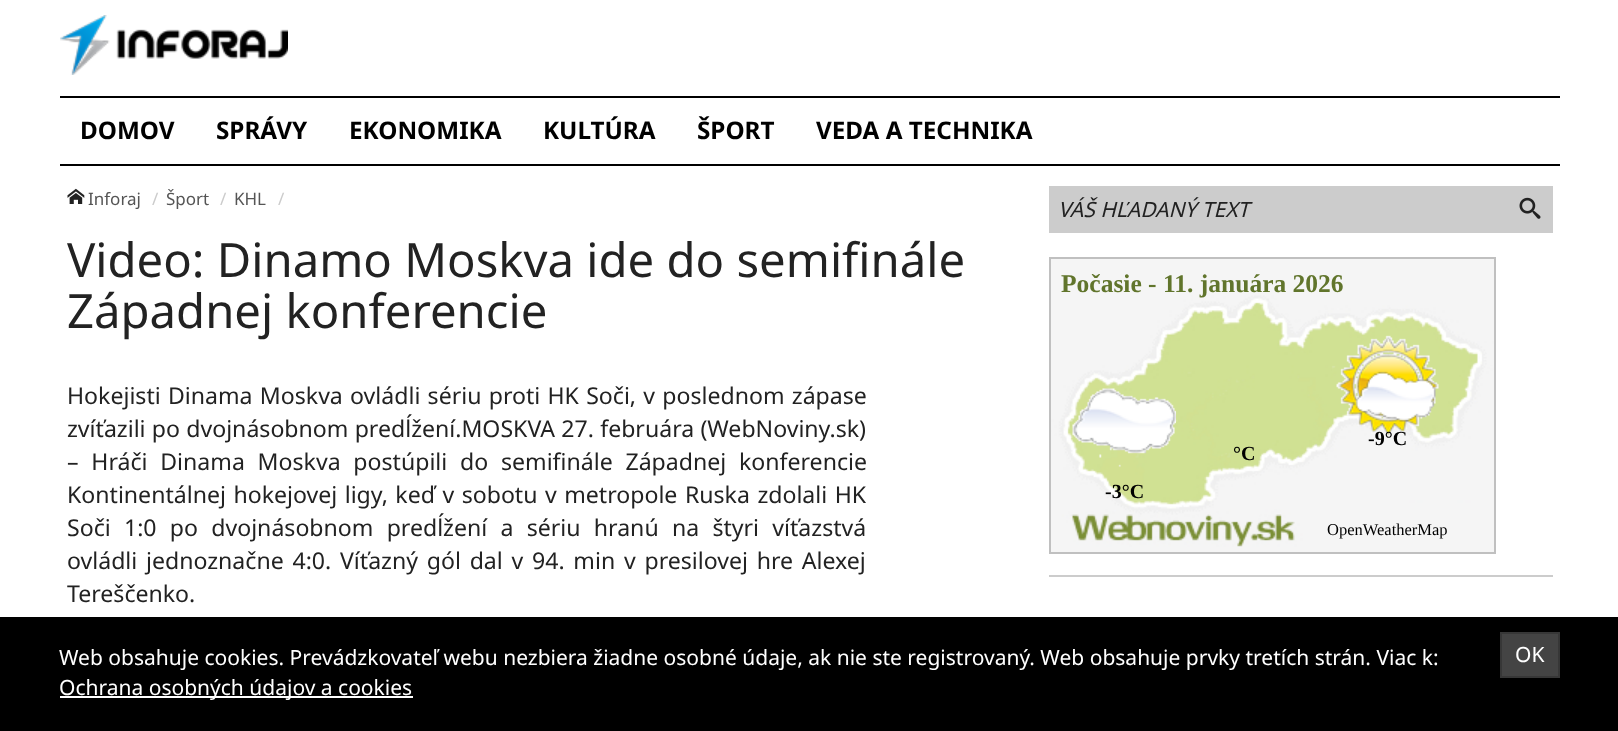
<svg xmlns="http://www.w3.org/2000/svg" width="1618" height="731">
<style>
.a{font:bold 24.25px Noto Sans;fill:#000}
.b{font:17px Noto Sans;fill:#555}
.c{font:17px Noto Sans;fill:#ccc}
.d{font:47.25px Noto Sans;fill:#222}
.e{font:23.1px Noto Sans;fill:#222}
.f{font:italic 21px Noto Sans;fill:#222}
.g{font:bold 25.5px Liberation Serif;fill:#61752c}
.h{font:bold 20px Liberation Serif;fill:#000}
.i{font:16.5px Liberation Serif;fill:#000}
.j{font:21px Noto Sans;fill:#fff}
</style>
<rect width="100%" height="100%" fill="#fff"/>
<image href="1.png" x="60" y="15" width="228" height="60"/>
<path fill="#000" d="M60 96h1500v2H60z"/>
<path fill="#000" d="M60 164h1500v2H60z"/>
<image href="2.png" x="67" y="188" width="18" height="16"/>
<path fill="#ccc" d="M1049 186h504v47H1049z"/>
<image href="3.png" x="1519" y="197" width="22" height="22"/>
<path fill="#ccc" d="M1049 575h504v2H1049z"/>
<image href="4.png" x="1051" y="259" width="443" height="293"/>
<path fill="none" stroke="#c0c0c0" stroke-width="2" d="M1050 258h445v295H1050z"/>
<image href="5.png" x="1072" y="388" width="104" height="79"/>
<image href="6.png" x="1336" y="335" width="103" height="102"/>
<path fill="#000" d="M0 617h1618v114H0z"/>
<path fill="#fff" d="M60 696h353v2H60z"/>
<path fill="#444" stroke="#373737" stroke-width="2" d="M1501 633h58v44H1501z"/>
<text class="a" x="80" y="139">DOMOV</text>
<text class="a" x="216" y="139">SPRÁVY</text>
<text class="a" x="349" y="139">EKONOMIKA</text>
<text class="a" x="543" y="139">KULTÚRA</text>
<text class="a" x="697" y="139">ŠPORT</text>
<text class="a" x="816" y="139">VEDA A TECHNIKA</text>
<text class="b" x="88" y="205">Inforaj</text>
<text class="c" x="152" y="205">/</text>
<text class="b" x="166" y="205">Šport</text>
<text class="c" x="220" y="205">/</text>
<text class="b" x="234" y="205">KHL</text>
<text class="c" x="278" y="205">/</text>
<text class="d" x="67" y="277">Video: Dinamo Moskva ide do semifinále</text>
<text class="d" x="67" y="328">Západnej konferencie</text>
<text class="e" x="67" y="404" word-spacing="1.25">Hokejisti Dinama Moskva ovládli sériu proti HK Soči, v poslednom zápase</text>
<text class="e" x="67" y="437" word-spacing="0.25">zvíťazili po dvojnásobnom predĺžení.MOSKVA 27. februára (WebNoviny.sk)</text>
<text class="e" x="67" y="470" word-spacing="6.75">– Hráči Dinama Moskva postúpili do semifinále Západnej konferencie</text>
<text class="e" x="67" y="503" word-spacing="1.5">Kontinentálnej hokejovej ligy, keď v sobotu v metropole Ruska zdolali HK</text>
<text class="e" x="67" y="536" word-spacing="7.25">Soči 1:0 po dvojnásobnom predĺžení a sériu hranú na štyri víťazstvá</text>
<text class="e" x="67" y="569" word-spacing="2.75">ovládli jednoznačne 4:0. Víťazný gól dal v 94. min v presilovej hre Alexej</text>
<text class="e" x="67" y="602">Tereščenko.</text>
<text class="f" x="1058" y="217">VÁŠ HĽADANÝ TEXT</text>
<text class="g" x="1061" y="292">Počasie - 11. januára 2026</text>
<text class="h" x="1368" y="445">-9°C</text>
<text class="h" x="1233" y="460">°C</text>
<text class="h" x="1105" y="498">-3°C</text>
<text class="i" x="1327" y="535">OpenWeatherMap</text>
<text class="j" x="59" y="665">Web obsahuje cookies. Prevádzkovateľ webu nezbiera žiadne osobné údaje, ak nie ste registrovaný. Web obsahuje prvky tretích strán. Viac k:</text>
<text class="j" x="59" y="695">Ochrana osobných údajov a cookies</text>
<text class="j" x="1515" y="662">OK</text>
</svg>
